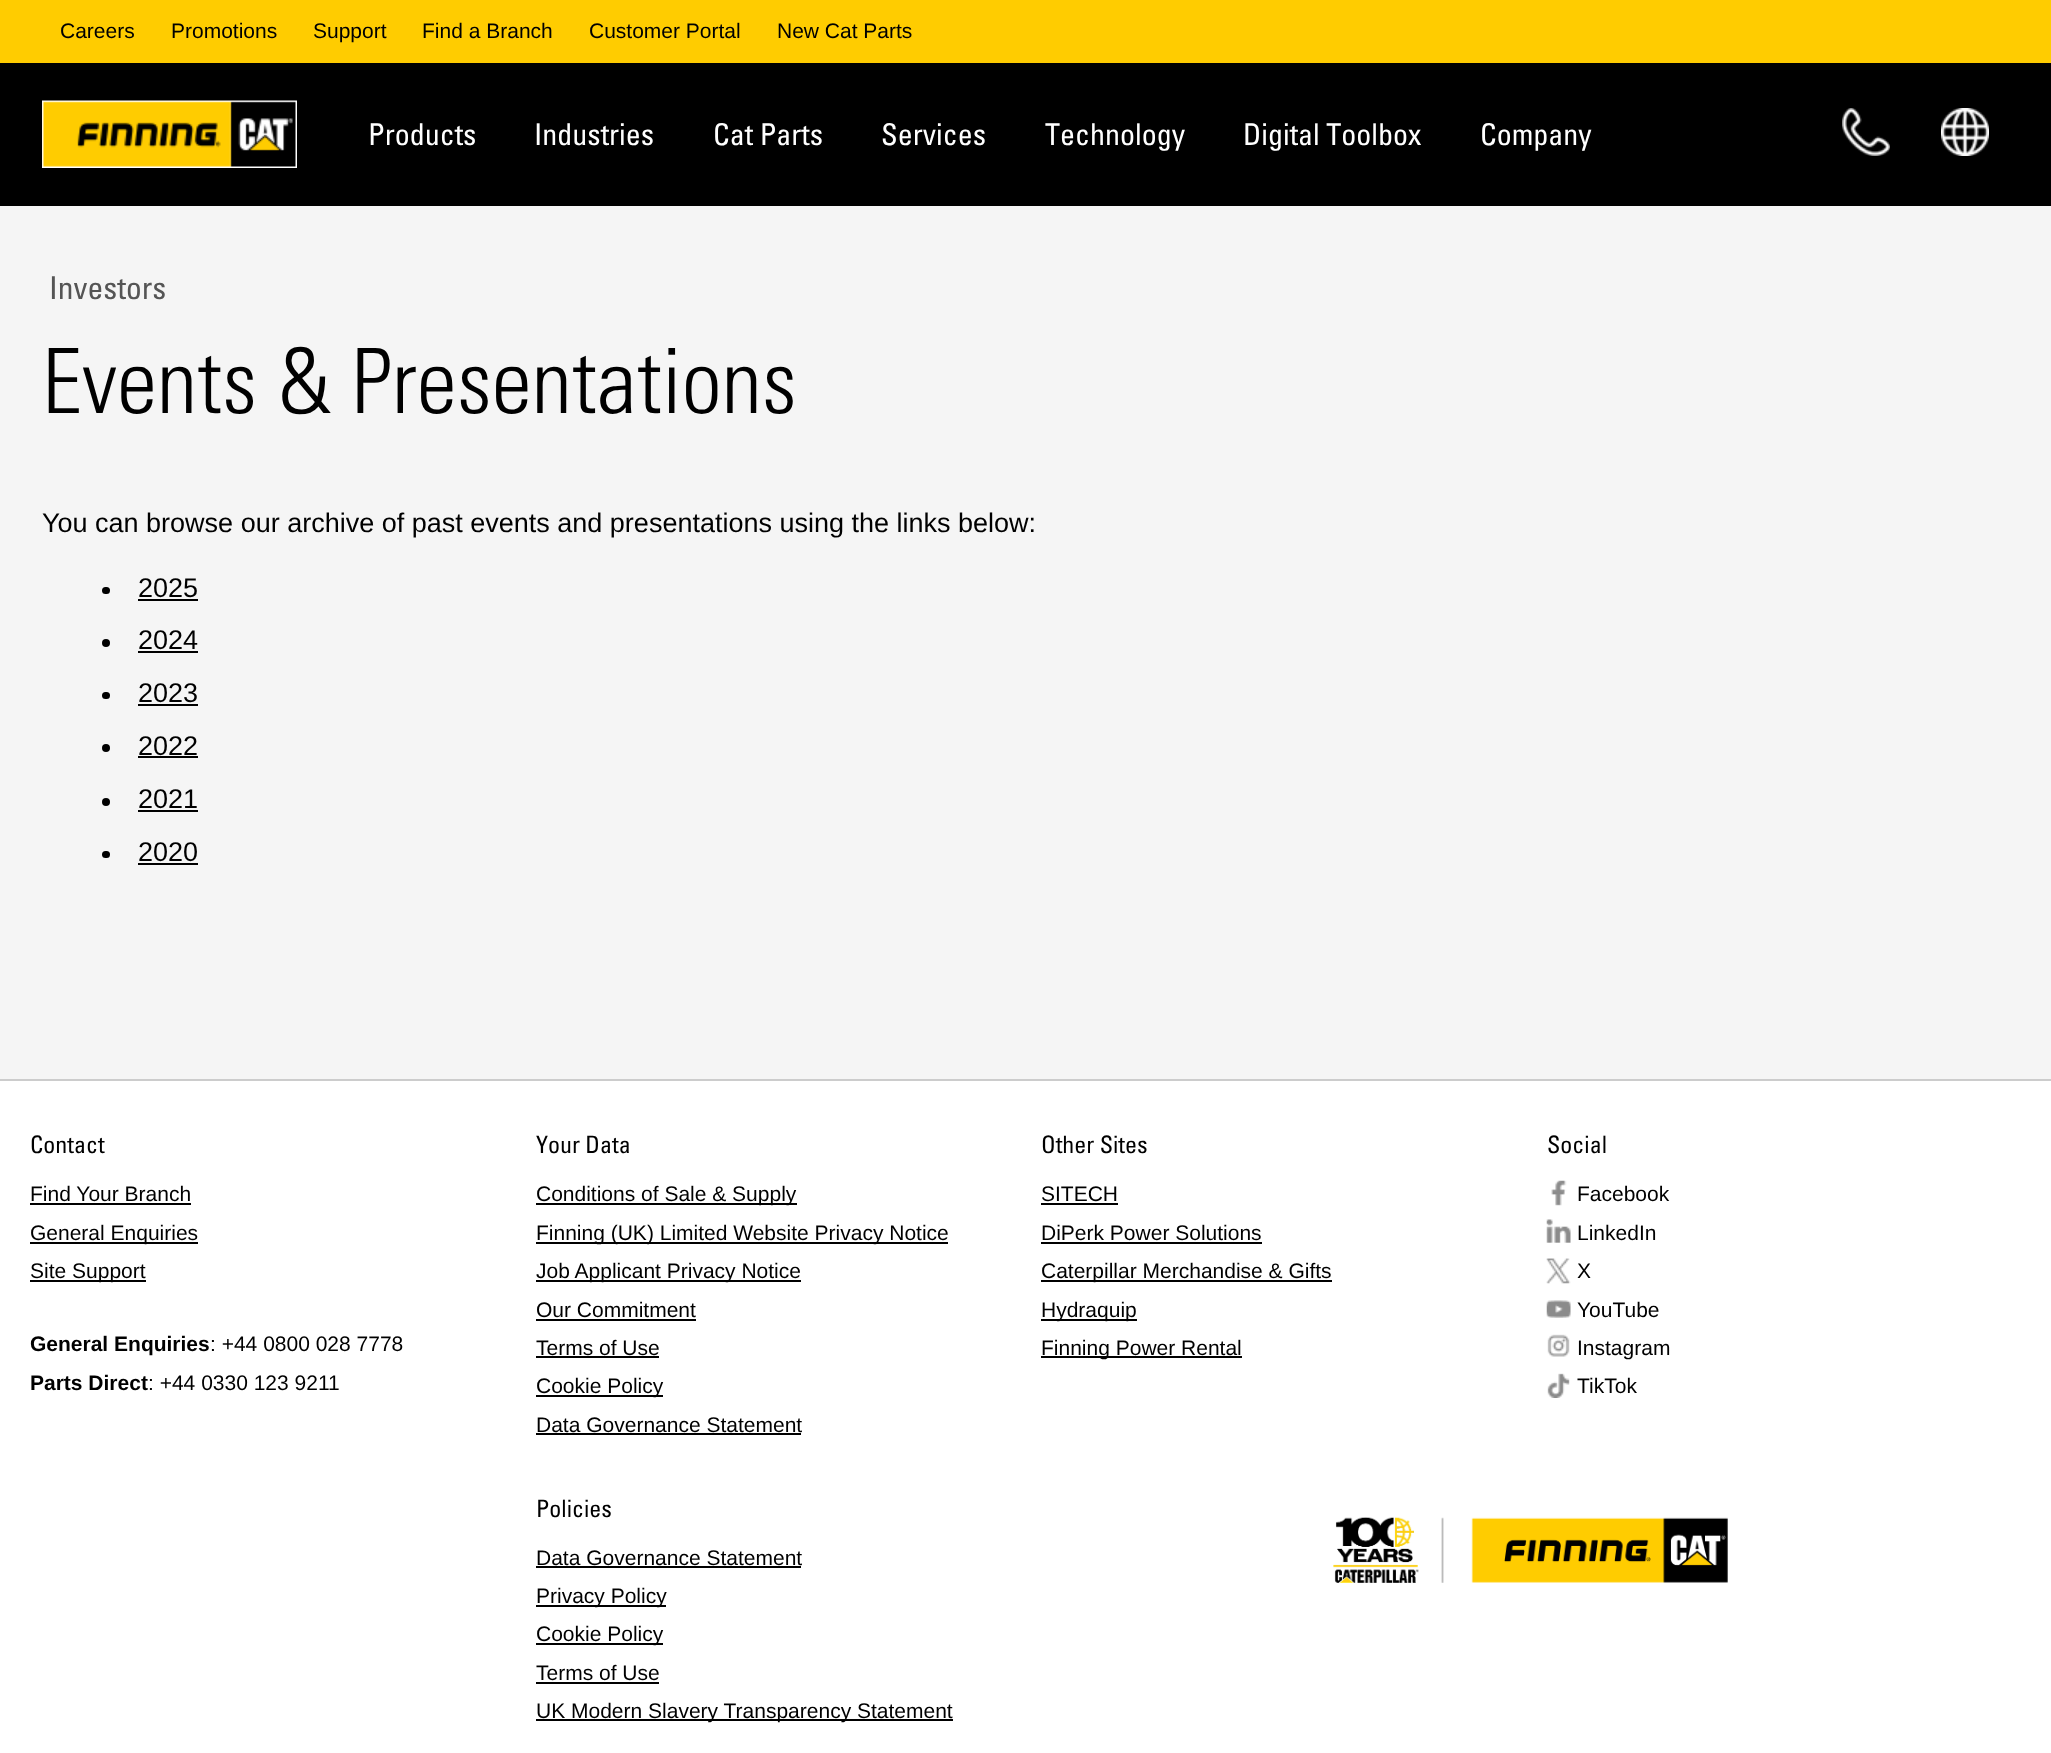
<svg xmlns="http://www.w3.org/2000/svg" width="2051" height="1753">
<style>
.a{font:21px Liberation Sans;fill:#000}
.b{font:30px Univers;fill:#fff}
.c{font:31.5px Univers;fill:#555}
.d{font:300 90px Univers;fill:#000}
.e{font:27px Liberation Sans;fill:#000}
.f{font:24px Univers;fill:#000}
.g{font:bold 21px Liberation Sans;fill:#000}
</style>
<rect width="100%" height="100%" fill="#fff"/>
<path fill="#fc0" d="M0 0h2051v63H0z"/>
<path fill="#000" d="M0 63h2051v143H0z"/>
<image href="1.png" x="42" y="100" width="255" height="68"/>
<image href="2.png" x="1842" y="108" width="48" height="48"/>
<image href="3.png" x="1941" y="108" width="48" height="48"/>
<path fill="#f5f5f5" d="M0 206h2051v873H0z"/>
<rect fill="#000" x="102" y="587" width="8" height="7" rx="3.5"/>
<path fill="#000" d="M138 599h60v2H138z"/>
<circle fill="#000" cx="106" cy="643" r="4"/>
<path fill="#000" d="M138 651h60v2H138z"/>
<rect fill="#000" x="102" y="692" width="8" height="7" rx="3.5"/>
<path fill="#000" d="M138 704h60v2H138z"/>
<circle fill="#000" cx="106" cy="748" r="4"/>
<path fill="#000" d="M138 756h60v2H138z"/>
<circle fill="#000" cx="106" cy="802" r="4"/>
<path fill="#000" d="M138 810h60v2H138z"/>
<rect fill="#000" x="102" y="851" width="8" height="7" rx="3.5"/>
<path fill="#000" d="M138 863h60v2H138z"/>
<path fill="#ccc" d="M0 1079h2051v2H0z"/>
<path fill="#000" d="M30 1203h161v2H30z"/>
<path fill="#000" d="M30 1242h168v2H30z"/>
<path fill="#000" d="M30 1280h116v2H30z"/>
<path fill="#000" d="M536 1203h261v2H536z"/>
<path fill="#000" d="M536 1242h412v2H536z"/>
<path fill="#000" d="M536 1280h265v2H536z"/>
<path fill="#000" d="M536 1319h160v2H536z"/>
<path fill="#000" d="M536 1356h123v2H536z"/>
<path fill="#000" d="M536 1395h127v2H536z"/>
<path fill="#000" d="M536 1433h265v2H536z"/>
<path fill="#000" d="M536 1566h265v2H536z"/>
<path fill="#000" d="M536 1605h130v2H536z"/>
<path fill="#000" d="M536 1643h127v2H536z"/>
<path fill="#000" d="M536 1682h123v2H536z"/>
<path fill="#000" d="M536 1719h417v2H536z"/>
<path fill="#000" d="M1041 1203h77v2H1041z"/>
<path fill="#000" d="M1041 1242h221v2H1041z"/>
<path fill="#000" d="M1041 1280h291v2H1041z"/>
<path fill="#000" d="M1041 1319h96v2H1041z"/>
<path fill="#000" d="M1041 1356h201v2H1041z"/>
<image href="4.png" x="1551" y="1180" width="16" height="26"/>
<image href="5.png" x="1546" y="1219" width="25" height="24"/>
<image href="6.png" x="1546" y="1258" width="25" height="26"/>
<image href="7.png" x="1546" y="1300" width="25" height="18"/>
<image href="8.png" x="1547" y="1334" width="23" height="23"/>
<image href="9.png" x="1547" y="1373" width="23" height="25"/>
<image href="10.png" x="1333" y="1517" width="395" height="66"/>
<text class="a" x="60" y="38">Careers</text>
<text class="a" x="171" y="38">Promotions</text>
<text class="a" x="313" y="38">Support</text>
<text class="a" x="422" y="38">Find a Branch</text>
<text class="a" x="589" y="38">Customer Portal</text>
<text class="a" x="777" y="38">New Cat Parts</text>
<text class="b" x="368" y="145">Products</text>
<text class="b" x="534" y="145">Industries</text>
<text class="b" x="713" y="145">Cat Parts</text>
<text class="b" x="881" y="145">Services</text>
<text class="b" x="1045" y="145">Technology</text>
<text class="b" x="1243" y="145">Digital Toolbox</text>
<text class="b" x="1480" y="145">Company</text>
<text class="c" x="49" y="299">Investors</text>
<text class="d" x="42" y="413">Events &amp; Presentations</text>
<text class="e" x="42" y="532">You can browse our archive of past events and presentations using the links below:</text>
<text class="e" x="138" y="597">2025</text>
<text class="e" x="138" y="649">2024</text>
<text class="e" x="138" y="702">2023</text>
<text class="e" x="138" y="755">2022</text>
<text class="e" x="138" y="808">2021</text>
<text class="e" x="138" y="861">2020</text>
<text class="f" x="30" y="1153">Contact</text>
<text class="a" x="30" y="1201">Find Your Branch</text>
<text class="a" x="30" y="1240">General Enquiries</text>
<text class="a" x="30" y="1278">Site Support</text>
<text class="g" x="30" y="1351">General Enquiries</text>
<text class="a" x="210" y="1351">: +44 0800 028 7778</text>
<text class="g" x="30" y="1390">Parts Direct</text>
<text class="a" x="148" y="1390">: +44 0330 123 9211</text>
<text class="f" x="536" y="1153">Your Data</text>
<text class="a" x="536" y="1201">Conditions of Sale &amp; Supply</text>
<text class="a" x="536" y="1240">Finning (UK) Limited Website Privacy Notice</text>
<text class="a" x="536" y="1278">Job Applicant Privacy Notice</text>
<text class="a" x="536" y="1317">Our Commitment</text>
<text class="a" x="536" y="1355">Terms of Use</text>
<text class="a" x="536" y="1393">Cookie Policy</text>
<text class="a" x="536" y="1432">Data Governance Statement</text>
<text class="f" x="536" y="1517">Policies</text>
<text class="a" x="536" y="1565">Data Governance Statement</text>
<text class="a" x="536" y="1603">Privacy Policy</text>
<text class="a" x="536" y="1641">Cookie Policy</text>
<text class="a" x="536" y="1680">Terms of Use</text>
<text class="a" x="536" y="1718">UK Modern Slavery Transparency Statement</text>
<text class="f" x="1041" y="1153">Other Sites</text>
<text class="a" x="1041" y="1201">SITECH</text>
<text class="a" x="1041" y="1240">DiPerk Power Solutions</text>
<text class="a" x="1041" y="1278">Caterpillar Merchandise &amp; Gifts</text>
<text class="a" x="1041" y="1317">Hydraquip</text>
<text class="a" x="1041" y="1355">Finning Power Rental</text>
<text class="f" x="1547" y="1153">Social</text>
<text class="a" x="1577" y="1201">Facebook</text>
<text class="a" x="1577" y="1240">LinkedIn</text>
<text class="a" x="1577" y="1278">X</text>
<text class="a" x="1577" y="1317">YouTube</text>
<text class="a" x="1577" y="1355">Instagram</text>
<text class="a" x="1577" y="1393">TikTok</text>
</svg>
